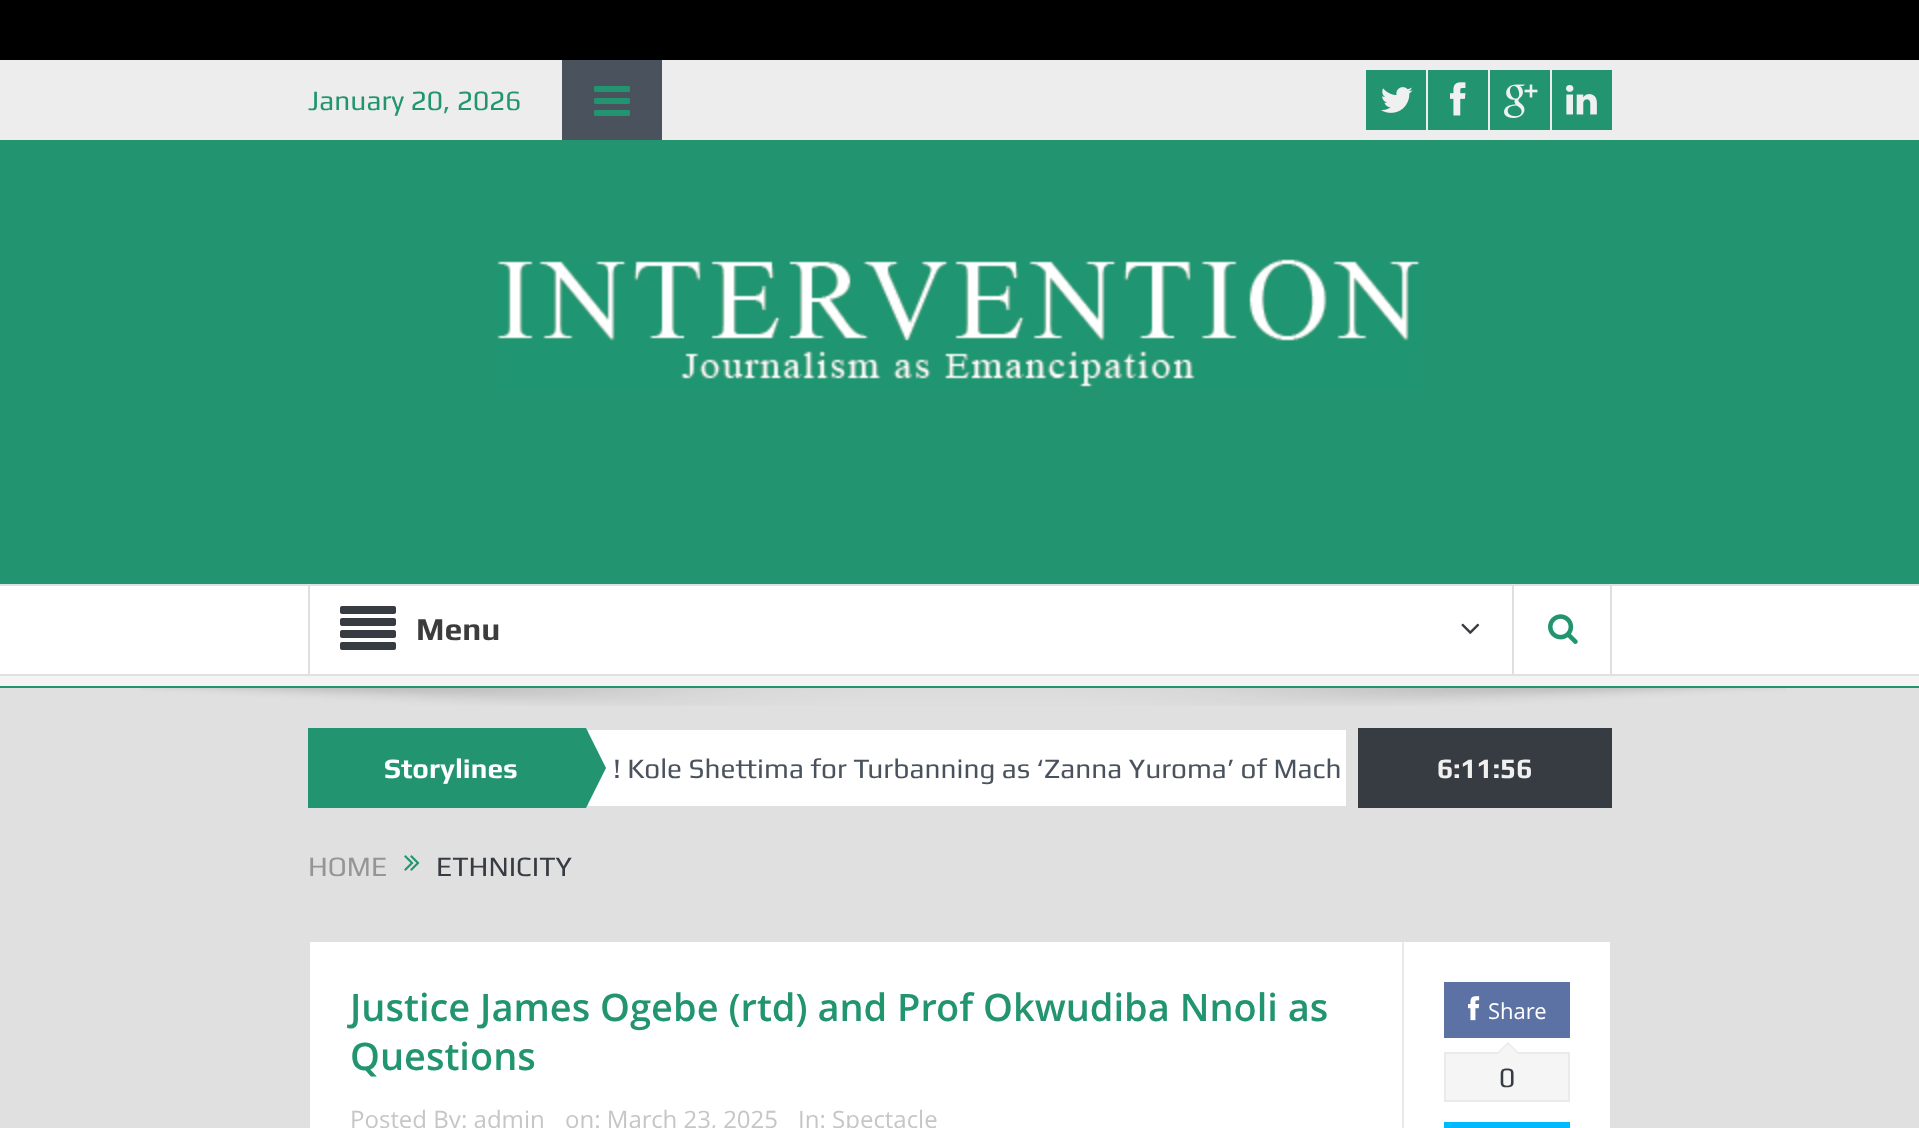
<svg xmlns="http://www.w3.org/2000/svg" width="1919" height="1128">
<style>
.a{font:28px Play;fill:#229570}
.b{font:bold 32px Play;fill:#3c3c3c}
.c{font:bold 28px Play;fill:#fff}
.d{font:28px Play;fill:#4a525d}
.e{font:bold 28px Play;fill:#f0f0f0}
.f{font:28px Play;fill:#959595}
.g{font:28px Play;fill:#373c43}
.h{font:600 38px Open Sans;fill:#229570}
.i{font:24px Open Sans;fill:#c6c6c6}
.j{font:22px Open Sans;fill:#fff}
</style>
<rect width="100%" height="100%" fill="#e0e0e0"/>
<path fill="#000" d="M0 0h1919v60H0z"/>
<path fill="#ededed" d="M0 60h1919v80H0z"/>
<path fill="#4a525d" d="M562 60h100v80H562z"/>
<image href="1.png" x="594" y="86" width="36" height="30"/>
<path fill="#229570" d="M1366 70h60v60H1366z"/>
<image href="2.png" x="1381" y="87" width="32" height="26"/>
<path fill="#229570" d="M1428 70h60v60H1428z"/>
<image href="3.png" x="1450" y="82" width="16" height="34"/>
<path fill="#229570" d="M1490 70h60v60H1490z"/>
<image href="4.png" x="1504" y="84" width="34" height="34"/>
<path fill="#229570" d="M1552 70h60v60H1552z"/>
<image href="5.png" x="1566" y="85" width="31" height="30"/>
<path fill="#229570" d="M0 140h1919v444H0z"/>
<image href="6.png" x="497" y="259" width="924" height="128"/>
<path fill="#f4f4f4" d="M0 676h1919v10H0z"/>
<path fill="#229570" d="M0 686h1919v2H0z"/>
<path fill="#fff" d="M0 586h1919v88H0z"/>
<path fill="#dfdfdf" d="M308 586h2v88H308z"/>
<image href="7.png" x="340" y="606" width="56" height="44"/>
<image href="8.png" x="1461" y="623" width="19" height="11"/>
<path fill="#dfdfdf" d="M1610 586h2v88H1610z"/>
<path fill="#dfdfdf" d="M1512 586h2v88H1512z"/>
<image href="9.png" x="1548" y="614" width="30" height="30"/>
<image href="10.png" x="140" y="688" width="1646" height="18"/>
<path fill="#229570" d="M308 728h278v80H308z"/>
<path fill="#fff" d="M588 730h758v76H588z"/>
<path fill="#229570" d="M586 808v-80l20 40z"/>
<path fill="#373c43" d="M1358 728h254v80H1358z"/>
<image href="11.png" x="404" y="855" width="16" height="16"/>
<path fill="#fff" d="M310 942h1300v186H310z"/>
<path fill="#eaeaea" d="M1402 942h2v186H1402z"/>
<path fill="#5d72a4" d="M1444 982h126v56H1444z"/>
<image href="12.png" x="1468" y="996" width="12" height="25"/>
<path fill="#f5f5f5" stroke="#eaeaea" stroke-width="2" d="M1445 1053h124v48H1445z"/>
<path fill="#eaeaea" d="M1520 1054h-24l12-12z"/>
<path fill="#f5f5f5" d="M1518 1054h-20l10-10z"/>
<path fill="#00baff" d="M1444 1122h126v6H1444z"/>
<text class="a" x="308" y="110">January 20, 2026</text>
<text class="b" x="416" y="640">Menu</text>
<text class="c" x="384" y="778">Storylines</text>
<text class="d" x="613" y="778">! Kole Shettima for Turbanning as ‘Zanna Yuroma’ of Mach</text>
<text class="e" x="1437" y="778">6:11:56</text>
<text class="f" x="308" y="876">HOME</text>
<text class="g" x="436" y="876">ETHNICITY</text>
<text class="h" x="350" y="1021">Justice James Ogebe (rtd) and Prof Okwudiba Nnoli as</text>
<text class="h" x="350" y="1070">Questions</text>
<text class="i" x="350" y="1128">Posted By: admin</text>
<text class="i" x="565" y="1128">on: March 23, 2025</text>
<text class="i" x="798" y="1128">In: Spectacle</text>
<text class="j" x="1488" y="1019">Share</text>
<text class="g" x="1499" y="1087">0</text>
</svg>
